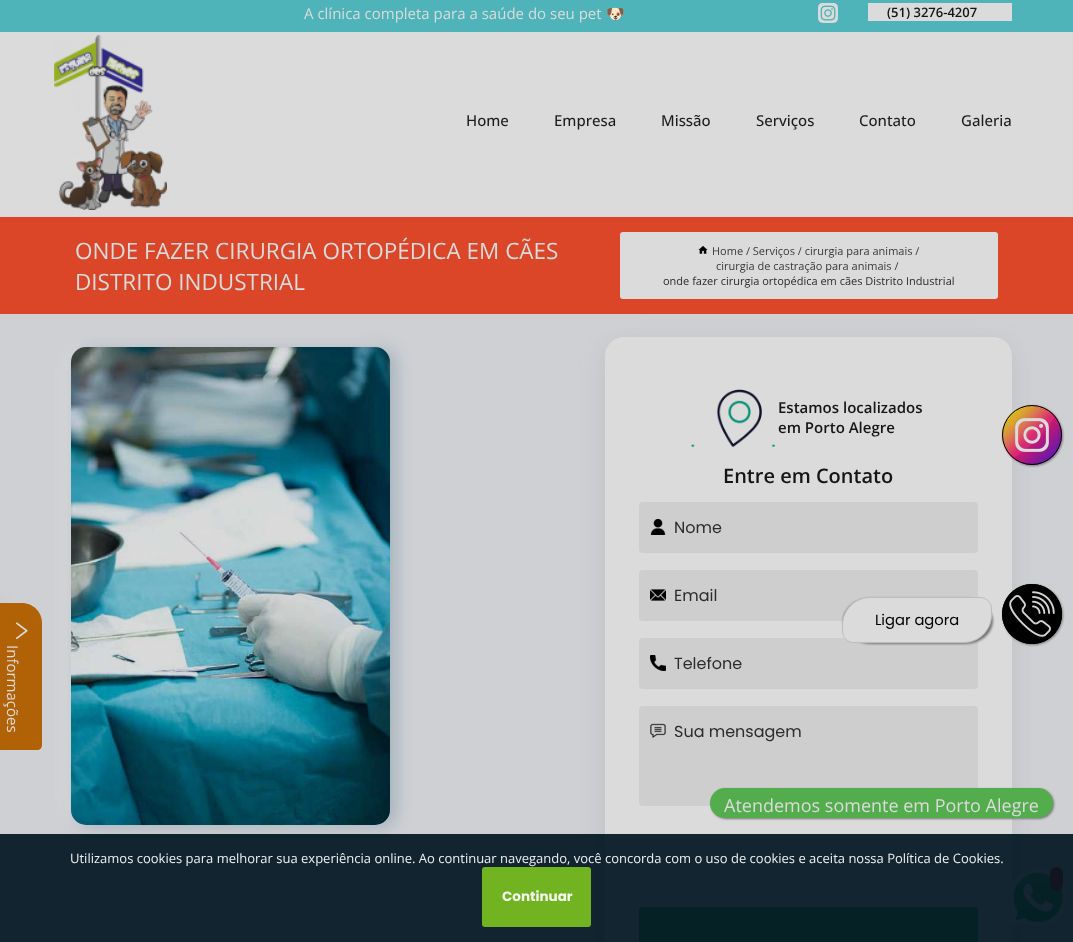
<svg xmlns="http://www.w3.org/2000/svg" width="1073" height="942">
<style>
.a{font:15px Open Sans;fill:#dbdbdb}
.b{font:15px Noto Color Emoji;fill:#dbdbdb}
.c{font:600 13px Open Sans;fill:#151515}
.d{font:500 15px Open Sans;fill:#1c1c1c}
.e{font:22.5px Open Sans;fill:#dbdbdb}
.f{font:11px Open Sans;fill:#3a3a3a}
.g{font:11px Open Sans;fill:#2c2c2c}
.h{font:600 15px Open Sans;fill:#151515}
.i{font:600 20px Open Sans;fill:#151515}
.j{font:16px Poppins;fill:#2c2c2c}
.k{font:14.75px Poppins;fill:#000}
.l{font:18px Open Sans;fill:#dbdbdb}
.m{font:13px Open Sans;fill:#eff0f1}
.n{font:bold 13.5px Poppins;fill:#f5faf0}
</style>
<rect width="100%" height="100%" fill="#ced0d3"/>
<path fill="#dbdbdb" d="M0 32h1073v185H0z"/>
<path fill="#4eb4b9" d="M0 0h1073v32H0z"/>
<image href="1.png" x="818" y="3" width="20" height="20"/>
<path fill="#dbdbdb" d="M868 3h144v18H868z"/>
<image href="2.png" x="54" y="35" width="113" height="175"/>
<path fill="#db4528" d="M0 217h1073v97H0z"/>
<rect fill="#dbdbdb" x="620" y="232" width="378" height="67" rx="3"/>
<image href="3.png" x="698" y="246" width="10" height="8"/>
<rect fill="#dbdbdbcc" filter="blur(8px)" x="65" y="345" width="319" height="478" rx="15"/>
<rect fill="#758ea47a" filter="blur(8px)" x="77" y="349" width="319" height="478" rx="15"/>
<image href="4.png" x="71" y="347" width="319" height="478"/>
<rect fill="#80878e33" filter="blur(12px)" x="605" y="345" width="407" height="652" rx="19"/>
<rect fill="#dbdbdb" x="605" y="337" width="407" height="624" rx="19"/>
<image href="5.png" x="690" y="389" width="86" height="58"/>
<rect fill="#cecece" x="639" y="502" width="339" height="51" rx="4"/>
<image href="6.png" x="650" y="519" width="16" height="16"/>
<rect fill="#cecece" x="639" y="570" width="339" height="51" rx="4"/>
<image href="7.png" x="650" y="589" width="16" height="12"/>
<rect fill="#cecece" x="639" y="638" width="339" height="51" rx="4"/>
<image href="8.png" x="650" y="655" width="16" height="16"/>
<rect fill="#cecece" x="639" y="706" width="339" height="100" rx="4"/>
<image href="9.png" x="650" y="723" width="16" height="15"/>
<rect fill="#3fac4c" x="639" y="907" width="339" height="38" rx="3"/>
<rect fill="#757575" filter="blur(1px)" x="1003" y="406" width="60" height="60" rx="30"/>
<image href="10.png" x="1002" y="405" width="60" height="60"/>
<circle fill="none" stroke="#000" cx="1032" cy="435" r="29.5"/>
<rect fill="#757575" filter="blur(1px)" x="1003" y="585" width="60" height="60" rx="30"/>
<image href="11.png" x="1002" y="584" width="60" height="60"/>
<circle fill="none" stroke="#000" cx="1032" cy="614" r="29.5"/>
<rect fill="#757575" filter="blur(1px)" x="843" y="598" width="150" height="46" rx="28"/>
<path fill="#dbdbdb" stroke="#bebdbd" d="M870 597.5h110c6.5 0 11.5 5 11.5 11.5v6c0 15-12.5 27.5-27.5 27.5h-110c-6.5 0-11.5-5-11.5-11.5v-6c0-15 12.5-27.5 27.5-27.5z"/>
<path fill="#727272" filter="blur(12px)" d="M-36 609h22v124H-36z"/>
<path fill="#b26206" d="M42 623v122c0 3-2 5-5 5h-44v-147h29c11 0 20 9 20 20z"/>
<image href="12.png" x="16" y="622" width="12" height="17"/>
<image href="13.png" x="1008" y="868" width="60" height="60"/>
<rect fill="#be0404" x="1050" y="867" width="13" height="24" rx="6.5"/>
<rect fill="#757575" filter="blur(1px)" x="711" y="789" width="343" height="30" rx="15"/>
<rect fill="#53ad4d" x="710" y="788" width="343" height="30" rx="15"/>
<path fill="#021722ed" d="M0 834h1073v108H0z"/>
<rect fill="#78be20ed" x="482" y="867" width="109" height="60" rx="3"/>
<text class="a" x="304" y="19">A clínica completa para a saúde do seu pet</text>
<text class="b" x="606" y="19">🐶</text>
<text class="c" x="887" y="17">(51) 3276-4207</text>
<text class="d" x="466" y="126">Home</text>
<text class="d" x="554" y="126">Empresa</text>
<text class="d" x="661" y="126">Missão</text>
<text class="d" x="756" y="126">Serviços</text>
<text class="d" x="859" y="126">Contato</text>
<text class="d" x="961" y="126">Galeria</text>
<text class="e" x="75" y="259">ONDE FAZER CIRURGIA ORTOPÉDICA EM CÃES</text>
<text class="e" x="75" y="290">DISTRITO INDUSTRIAL</text>
<text class="f" x="712" y="255">Home / Serviços / cirurgia para animais /</text>
<text class="f" x="716" y="270">cirurgia de castração para animais /</text>
<text class="g" x="663" y="285">onde fazer cirurgia ortopédica em cães Distrito Industrial</text>
<text class="h" x="778" y="413">Estamos localizados</text>
<text class="h" x="778" y="433">em Porto Alegre</text>
<text class="i" x="723" y="483">Entre em Contato</text>
<text class="j" x="674" y="533">Nome</text>
<text class="j" x="674" y="601">Email</text>
<text class="j" x="674" y="669">Telefone</text>
<text class="j" x="674" y="737">Sua mensagem</text>
<text class="k" x="875" y="625">Ligar agora</text>
<text class="a" x="7" y="645" transform="rotate(90 7 645)">Informações</text>
<text class="l" x="724" y="812">Atendemos somente em Porto Alegre</text>
<text class="m" x="70" y="863">Utilizamos cookies para melhorar sua experiência online. Ao continuar navegando, você concorda com o uso de cookies e aceita nossa Política de Cookies.</text>
<text class="n" x="502" y="901">Continuar</text>
</svg>
